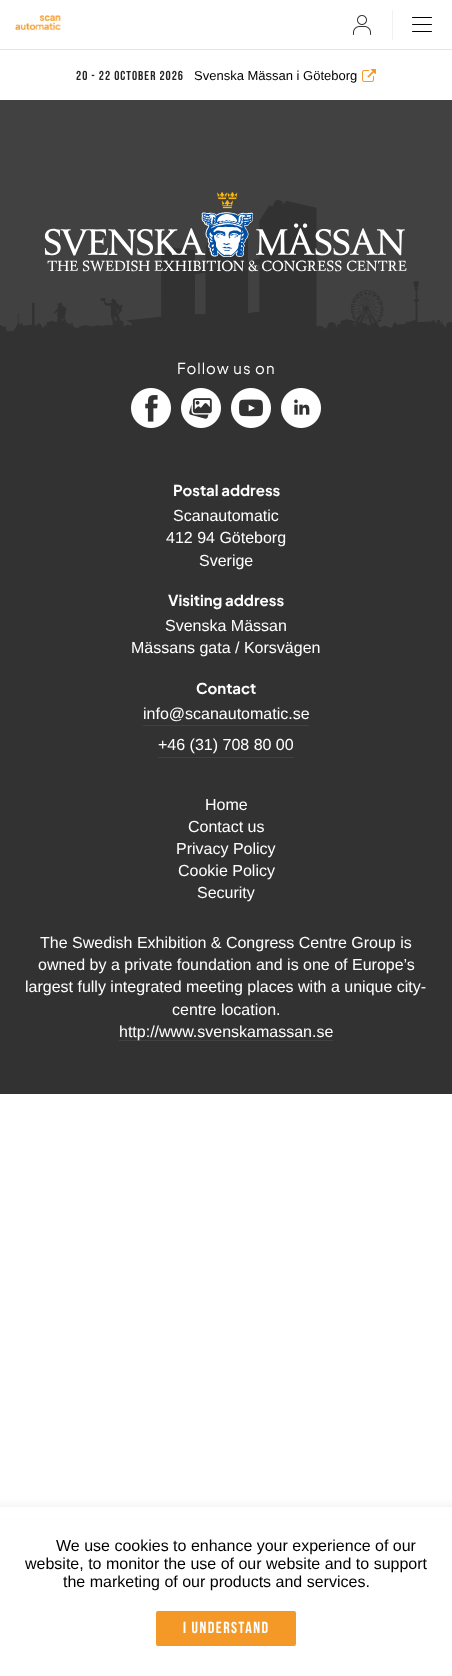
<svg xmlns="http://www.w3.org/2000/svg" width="452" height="1676">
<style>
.a{font:bold 13px Bebas Neue;letter-spacing:1px;fill:#262626}
.b{font:13px Liberation Sans;fill:#000}
.c{font:15px Plus Jakarta Sans;letter-spacing:1px;fill:#fff}
.d{font:bold 15px Plus Jakarta Sans;fill:#fff}
.e{font:16px Liberation Sans;fill:#fff}
.f{font:16px Liberation Sans;fill:#000}
.g{font:bold 16px Bebas Neue;letter-spacing:1.5px;fill:#fff}
</style>
<rect width="100%" height="100%" fill="#fff"/>
<path fill="#e5e5e5" d="M0 49h452v1H0z"/>
<image href="1.png" x="15" y="15" width="46" height="16"/>
<image href="2.png" x="353" y="15" width="18" height="20"/>
<path fill="#f1f1f1" d="M392 10h1v30H392z"/>
<rect fill="#000" x="412" y="24" width="20" height="1" rx="0.5"/>
<rect fill="#000" x="412" y="17" width="20" height="1" rx="0.5"/>
<rect fill="#000" x="412" y="31" width="20" height="1" rx="0.5"/>
<image href="3.png" x="362" y="69" width="14" height="13"/>
<path fill="#414141" d="M0 100h452v232H0z"/>
<image href="5.png" x="0" y="200" width="452" height="140"/>
<image href="4.png" x="44" y="192" width="363" height="80"/>
<path fill="#323232" d="M0 340h452v754H0z"/>
<image href="6.png" x="131" y="388" width="40" height="40"/>
<image href="7.png" x="181" y="388" width="40" height="40"/>
<image href="8.png" x="231" y="388" width="40" height="40"/>
<image href="9.png" x="281" y="388" width="40" height="40"/>
<path fill="#414141" d="M143 725h166v1H143z"/>
<path fill="#414141" d="M158 757h136v1H158z"/>
<path fill="#414141" d="M119 1040h214v1H119z"/>
<path fill="#00000080" filter="blur(5px)" d="M-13 1509h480v1H-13z"/>
<path fill="#fff" d="M0 1507h452v11H0z"/>
<rect fill="#f49927" x="156" y="1611" width="140" height="35" rx="2"/>
<text class="a" x="76" y="80">20 - 22 October 2026</text>
<text class="b" x="194" y="80">Svenska Mässan i Göteborg</text>
<text class="c" x="177" y="374">Follow us on</text>
<text class="d" x="173" y="496">Postal address</text>
<text class="e" x="173" y="521">Scanautomatic</text>
<text class="e" x="166" y="543">412 94 Göteborg</text>
<text class="e" x="199" y="566">Sverige</text>
<text class="d" x="168" y="606">Visiting address</text>
<text class="e" x="165" y="631">Svenska Mässan</text>
<text class="e" x="131" y="653">Mässans gata / Korsvägen</text>
<text class="d" x="196" y="694">Contact</text>
<text class="e" x="143" y="719">info@scanautomatic.se</text>
<text class="e" x="158" y="750">+46 (31) 708 80 00</text>
<text class="e" x="205" y="810">Home</text>
<text class="e" x="188" y="832">Contact us</text>
<text class="e" x="176" y="854">Privacy Policy</text>
<text class="e" x="178" y="876">Cookie Policy</text>
<text class="e" x="197" y="898">Security</text>
<text class="e" x="40" y="948">The Swedish Exhibition &amp; Congress Centre Group is</text>
<text class="e" x="38" y="970">owned by a private foundation and is one of Europe’s</text>
<text class="e" x="25" y="992">largest fully integrated meeting places with a unique city-</text>
<text class="e" x="172" y="1015">centre location.</text>
<text class="e" x="119" y="1037">http://www.svenskamassan.se</text>
<text class="f" x="56" y="1551">We use cookies to enhance your experience of our</text>
<text class="f" x="25" y="1569">website, to monitor the use of our website and to support</text>
<text class="f" x="63" y="1587">the marketing of our products and services.</text>
<text class="g" x="183" y="1633">I understand</text>
</svg>
